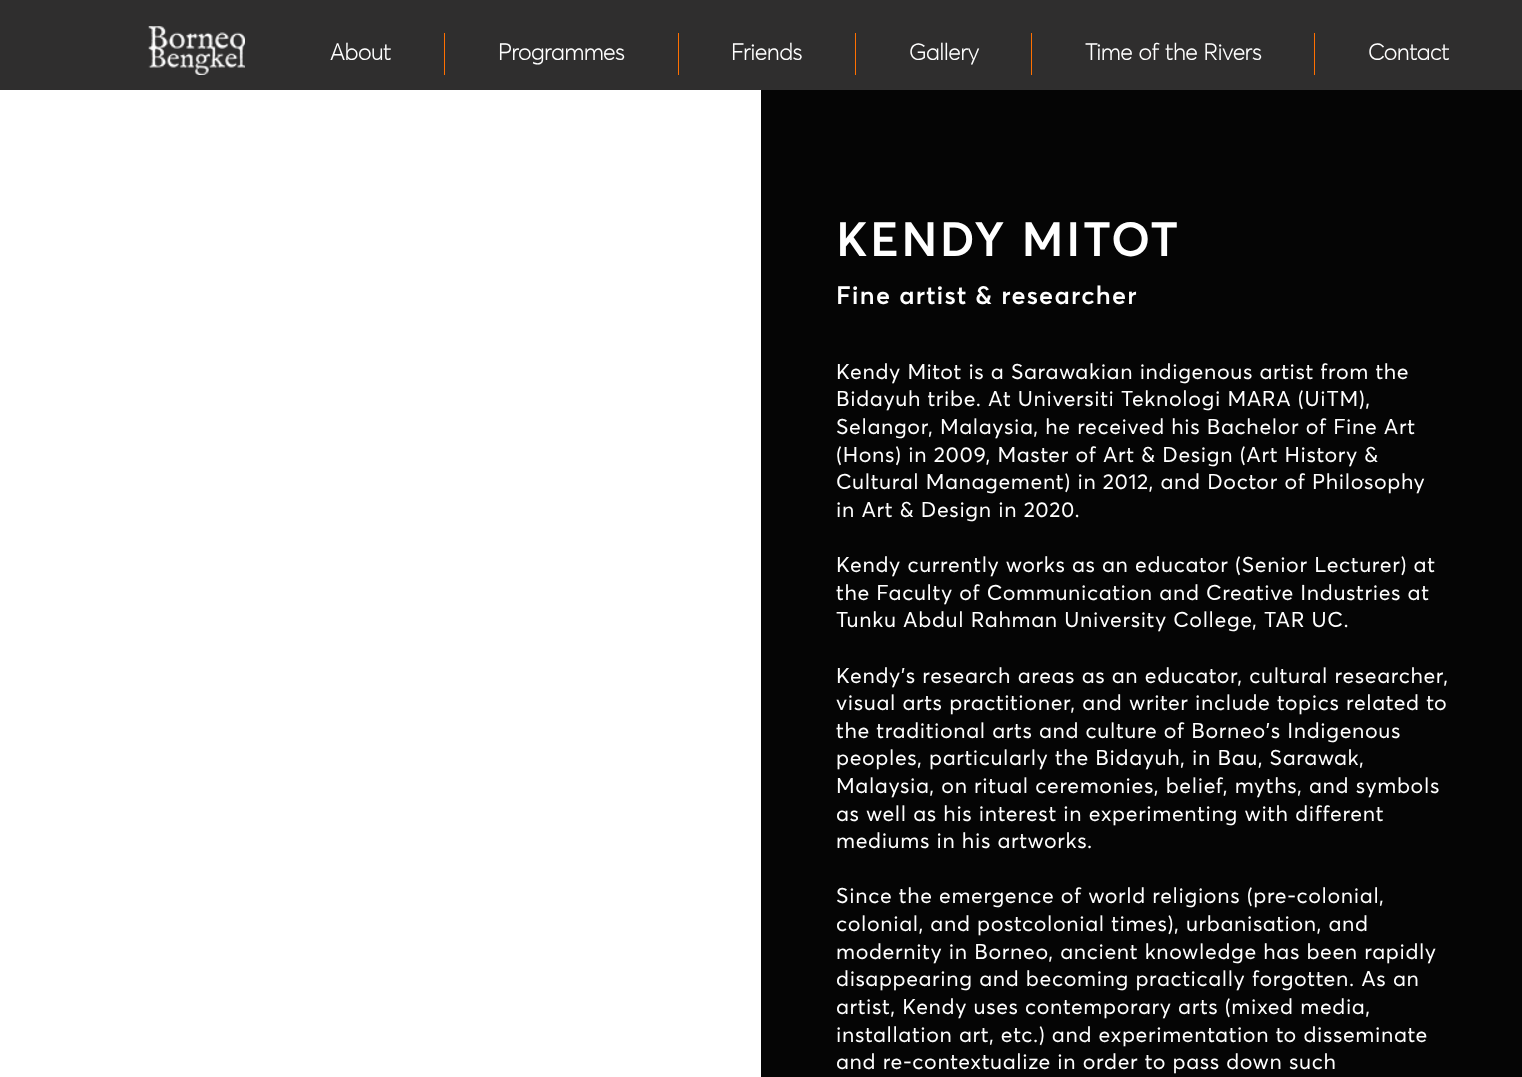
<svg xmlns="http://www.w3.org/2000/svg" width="1522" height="1077">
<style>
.a{font:bold 22.5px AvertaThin;fill:#fff}
.b{font:600 47.5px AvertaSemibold;letter-spacing:2.4px;fill:#fff}
.c{font:600 25px AvertaSemibold;letter-spacing:1.25px;fill:#fff}
.d{font:21.25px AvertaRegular;letter-spacing:0.65px;fill:#fff}
</style>
<rect width="100%" height="100%" fill="#fff"/>
<path fill="#2f2e2e" d="M0 0h1522v90H0z"/>
<image href="1.png" x="148" y="26" width="97" height="49"/>
<path fill="#ff7000" d="M444 33h1v42H444z"/>
<path fill="#ff7000" d="M678 33h1v42H678z"/>
<path fill="#ff7000" d="M855 33h1v42H855z"/>
<path fill="#ff7000" d="M1031 33h1v42H1031z"/>
<path fill="#ff7000" d="M1314 33h1v42H1314z"/>
<path fill="#050505" d="M761 90h761v987H761z"/>
<text class="a" x="330" y="60">About</text>
<text class="a" x="498" y="60">Programmes</text>
<text class="a" x="731" y="60">Friends</text>
<text class="a" x="909" y="60">Gallery</text>
<text class="a" x="1085" y="60">Time of the Rivers</text>
<text class="a" x="1368" y="60">Contact</text>
<text class="b" x="836" y="256">KENDY MITOT</text>
<text class="c" x="836" y="304">Fine artist &amp; researcher</text>
<text class="d" x="836" y="379">Kendy Mitot is a Sarawakian indigenous artist from the</text>
<text class="d" x="836" y="406">Bidayuh tribe. At Universiti Teknologi MARA (UiTM),</text>
<text class="d" x="836" y="434">Selangor, Malaysia, he received his Bachelor of Fine Art</text>
<text class="d" x="836" y="462">(Hons) in 2009, Master of Art &amp; Design (Art History &amp;</text>
<text class="d" x="836" y="489">Cultural Management) in 2012, and Doctor of Philosophy</text>
<text class="d" x="836" y="517">in Art &amp; Design in 2020.</text>
<text class="d" x="836" y="572">Kendy currently works as an educator (Senior Lecturer) at</text>
<text class="d" x="836" y="600">the Faculty of Communication and Creative Industries at</text>
<text class="d" x="836" y="627">Tunku Abdul Rahman University College, TAR UC.</text>
<text class="d" x="836" y="683">Kendy's research areas as an educator, cultural researcher,</text>
<text class="d" x="836" y="710">visual arts practitioner, and writer include topics related to</text>
<text class="d" x="836" y="738">the traditional arts and culture of Borneo's Indigenous</text>
<text class="d" x="836" y="765">peoples, particularly the Bidayuh, in Bau, Sarawak,</text>
<text class="d" x="836" y="793">Malaysia, on ritual ceremonies, belief, myths, and symbols</text>
<text class="d" x="836" y="821">as well as his interest in experimenting with different</text>
<text class="d" x="836" y="848">mediums in his artworks.</text>
<text class="d" x="836" y="903">Since the emergence of world religions (pre-colonial,</text>
<text class="d" x="836" y="931">colonial, and postcolonial times), urbanisation, and</text>
<text class="d" x="836" y="959">modernity in Borneo, ancient knowledge has been rapidly</text>
<text class="d" x="836" y="986">disappearing and becoming practically forgotten. As an</text>
<text class="d" x="836" y="1014">artist, Kendy uses contemporary arts (mixed media,</text>
<text class="d" x="836" y="1042">installation art, etc.) and experimentation to disseminate</text>
<text class="d" x="836" y="1069">and re-contextualize in order to pass down such</text>
</svg>
